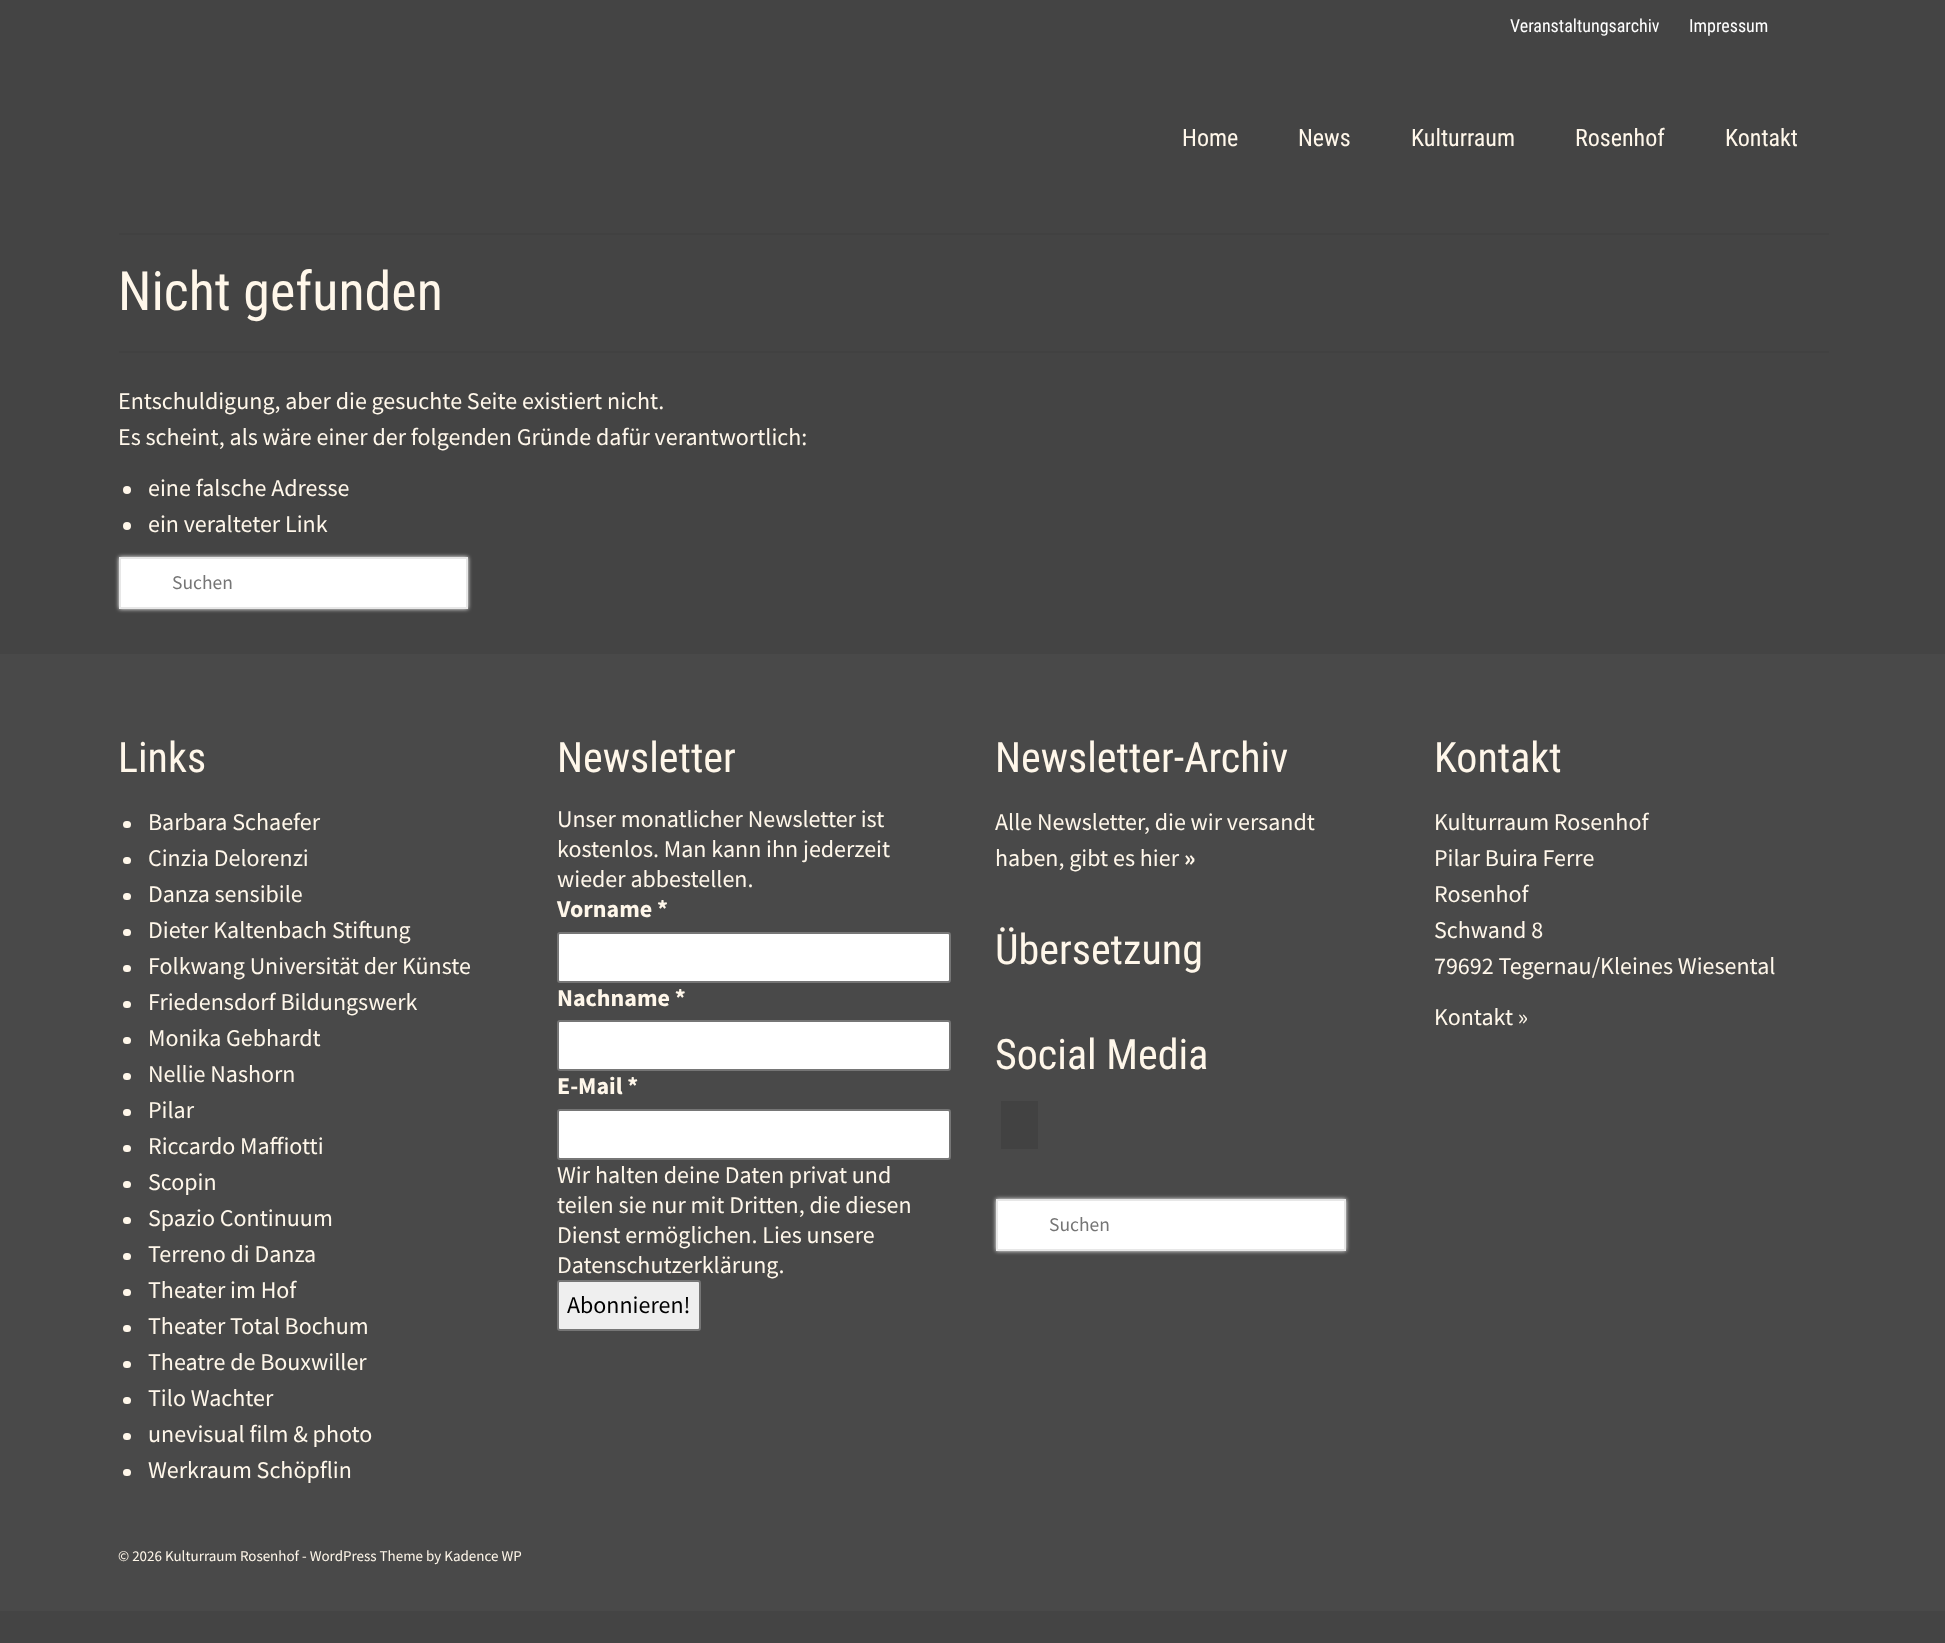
<svg xmlns="http://www.w3.org/2000/svg" width="1945" height="1643">
<style>
.a{font:18px Roboto Condensed;fill:#fff}
.b{font:24px Roboto Condensed;fill:#fff7ea}
.c{font:54px Roboto Condensed;fill:#fff7ea}
.d{font:24px Source Sans Pro;fill:#fff7ea}
.e{font:19.5px Source Sans Pro;fill:#757575}
.f{font:42px Roboto Condensed;fill:#fff7ea}
.g{font:bold 24px Source Sans Pro;fill:#fff7ea}
.h{font:24px Source Sans Pro;fill:#000}
.i{font:15px Source Sans Pro;fill:#fff7ea}
</style>
<rect width="100%" height="100%" fill="#444"/>
<path fill="#414141" d="M119 233h1710v2H119z"/>
<path fill="#414141" d="M119 351h1710v2H119z"/>
<circle fill="#fff7ea" cx="127" cy="490" r="4"/>
<circle fill="#fff7ea" cx="127" cy="526" r="4"/>
<path fill="#fff" filter="blur(2px)" d="M119 557h349v52H119z"/>
<path fill="#fff" stroke="#e7e7e7" stroke-width="2" d="M120 558h347v50H120z"/>
<path fill="#494949" d="M0 654h1945v957H0z"/>
<rect fill="#fff7ea" x="123" y="821" width="8" height="7" rx="3.5"/>
<rect fill="#fff7ea" x="123" y="857" width="8" height="7" rx="3.5"/>
<rect fill="#fff7ea" x="123" y="893" width="8" height="7" rx="3.5"/>
<rect fill="#fff7ea" x="123" y="929" width="8" height="7" rx="3.5"/>
<rect fill="#fff7ea" x="123" y="965" width="8" height="7" rx="3.5"/>
<rect fill="#fff7ea" x="123" y="1001" width="8" height="7" rx="3.5"/>
<rect fill="#fff7ea" x="123" y="1037" width="8" height="7" rx="3.5"/>
<rect fill="#fff7ea" x="123" y="1073" width="8" height="7" rx="3.5"/>
<rect fill="#fff7ea" x="123" y="1109" width="8" height="7" rx="3.5"/>
<rect fill="#fff7ea" x="123" y="1145" width="8" height="7" rx="3.5"/>
<rect fill="#fff7ea" x="123" y="1181" width="8" height="7" rx="3.5"/>
<rect fill="#fff7ea" x="123" y="1217" width="8" height="7" rx="3.5"/>
<rect fill="#fff7ea" x="123" y="1253" width="8" height="7" rx="3.5"/>
<rect fill="#fff7ea" x="123" y="1289" width="8" height="7" rx="3.5"/>
<rect fill="#fff7ea" x="123" y="1325" width="8" height="7" rx="3.5"/>
<rect fill="#fff7ea" x="123" y="1361" width="8" height="7" rx="3.5"/>
<rect fill="#fff7ea" x="123" y="1397" width="8" height="7" rx="3.5"/>
<rect fill="#fff7ea" x="123" y="1433" width="8" height="7" rx="3.5"/>
<rect fill="#fff7ea" x="123" y="1469" width="8" height="7" rx="3.5"/>
<rect fill="#fff" stroke="#767676" stroke-width="2" x="558" y="933" width="392" height="49" rx="2"/>
<rect fill="#fff" stroke="#767676" stroke-width="2" x="558" y="1021" width="392" height="49" rx="2"/>
<rect fill="#fff" stroke="#767676" stroke-width="2" x="558" y="1110" width="392" height="49" rx="2"/>
<rect fill="#efefef" stroke="#767676" stroke-width="2" x="558" y="1281" width="142" height="49" rx="2"/>
<path fill="#424242" d="M1001 1101h37v48H1001z"/>
<path fill="#fff" filter="blur(2px)" d="M996 1199h350v52H996z"/>
<path fill="#fff" stroke="#e7e7e7" stroke-width="2" d="M997 1200h348v50H997z"/>
<text class="a" x="1510" y="32">Veranstaltungsarchiv</text>
<text class="a" x="1689" y="32">Impressum</text>
<text class="b" x="1182" y="146">Home</text>
<text class="b" x="1298" y="146">News</text>
<text class="b" x="1411" y="146">Kulturraum</text>
<text class="b" x="1575" y="146">Rosenhof</text>
<text class="b" x="1725" y="146">Kontakt</text>
<text class="c" x="118" y="310">Nicht gefunden</text>
<text class="d" x="118" y="409">Entschuldigung, aber die gesuchte Seite existiert nicht.</text>
<text class="d" x="118" y="445">Es scheint, als wäre einer der folgenden Gründe dafür verantwortlich:</text>
<text class="d" x="148" y="496">eine falsche Adresse</text>
<text class="d" x="148" y="532">ein veralteter Link</text>
<text class="e" x="172" y="589">Suchen</text>
<text class="f" x="118" y="772">Links</text>
<text class="d" x="148" y="830">Barbara Schaefer</text>
<text class="d" x="148" y="866">Cinzia Delorenzi</text>
<text class="d" x="148" y="902">Danza sensibile</text>
<text class="d" x="148" y="938">Dieter Kaltenbach Stiftung</text>
<text class="d" x="148" y="974">Folkwang Universität der Künste</text>
<text class="d" x="148" y="1010">Friedensdorf Bildungswerk</text>
<text class="d" x="148" y="1046">Monika Gebhardt</text>
<text class="d" x="148" y="1082">Nellie Nashorn</text>
<text class="d" x="148" y="1118">Pilar</text>
<text class="d" x="148" y="1154">Riccardo Maffiotti</text>
<text class="d" x="148" y="1190">Scopin</text>
<text class="d" x="148" y="1226">Spazio Continuum</text>
<text class="d" x="148" y="1262">Terreno di Danza</text>
<text class="d" x="148" y="1298">Theater im Hof</text>
<text class="d" x="148" y="1334">Theater Total Bochum</text>
<text class="d" x="148" y="1370">Theatre de Bouxwiller</text>
<text class="d" x="148" y="1406">Tilo Wachter</text>
<text class="d" x="148" y="1442">unevisual film &amp; photo</text>
<text class="d" x="148" y="1478">Werkraum Schöpflin</text>
<text class="f" x="557" y="772">Newsletter</text>
<text class="d" x="557" y="827">Unser monatlicher Newsletter ist</text>
<text class="d" x="557" y="857">kostenlos. Man kann ihn jederzeit</text>
<text class="d" x="557" y="887">wieder abbestellen.</text>
<text class="g" x="557" y="917">Vorname *</text>
<text class="g" x="557" y="1006">Nachname *</text>
<text class="g" x="557" y="1094">E-Mail *</text>
<text class="d" x="557" y="1183">Wir halten deine Daten privat und</text>
<text class="d" x="557" y="1213">teilen sie nur mit Dritten, die diesen</text>
<text class="d" x="557" y="1243">Dienst ermöglichen. Lies unsere</text>
<text class="d" x="557" y="1273">Datenschutzerklärung.</text>
<text class="h" x="567" y="1313">Abonnieren!</text>
<text class="f" x="995" y="772">Newsletter-Archiv</text>
<text class="d" x="995" y="830">Alle Newsletter, die wir versandt</text>
<text class="d" x="995" y="866">haben, gibt es hier</text>
<text class="g" x="1184" y="866">»</text>
<text class="f" x="995" y="964">Übersetzung</text>
<text class="f" x="995" y="1069">Social Media</text>
<text class="e" x="1049" y="1231">Suchen</text>
<text class="f" x="1434" y="772">Kontakt</text>
<text class="d" x="1434" y="830">Kulturraum Rosenhof</text>
<text class="d" x="1434" y="866">Pilar Buira Ferre</text>
<text class="d" x="1434" y="902">Rosenhof</text>
<text class="d" x="1434" y="938">Schwand 8</text>
<text class="d" x="1434" y="974">79692 Tegernau/Kleines Wiesental</text>
<text class="d" x="1434" y="1025">Kontakt »</text>
<text class="i" x="118" y="1561">© 2026 Kulturraum Rosenhof - WordPress Theme by Kadence WP</text>
</svg>
